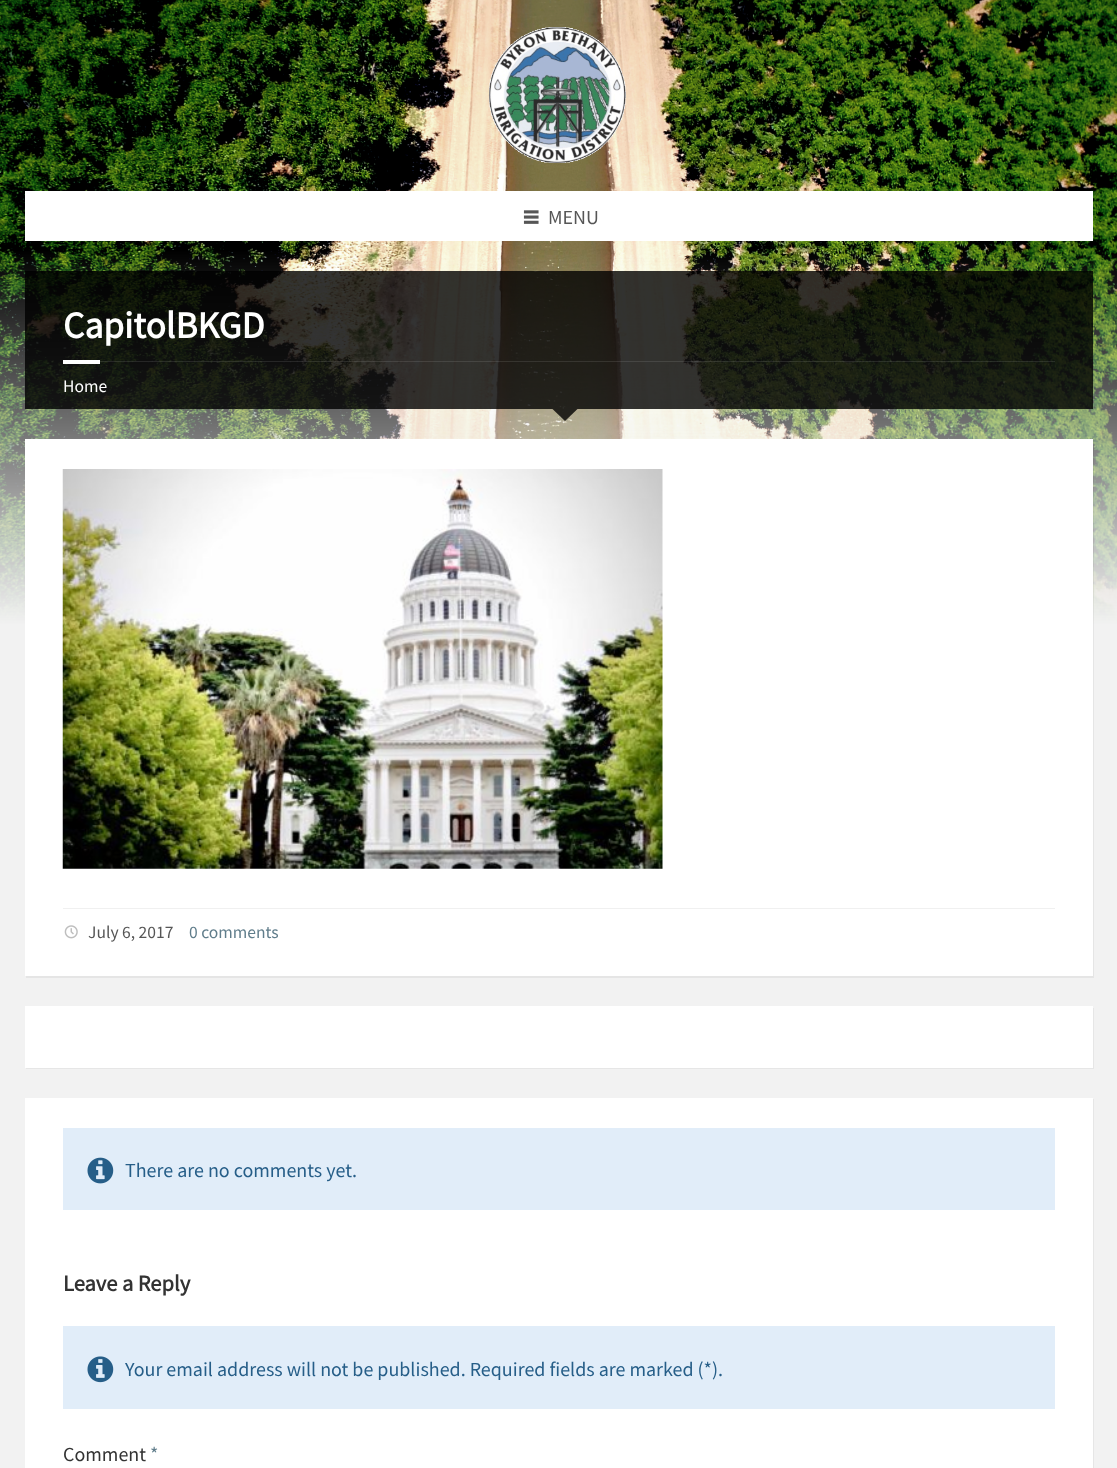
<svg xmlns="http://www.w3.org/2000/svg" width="1117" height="1468">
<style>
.a{font:20px Source Sans Pro;fill:#565656}
.b{font:bold 37.5px Source Sans Pro;fill:#fff}
.c{font:17.5px Source Sans Pro;fill:#fff}
.d{font:17.5px Source Sans Pro;fill:#565656}
.e{font:17.5px Source Sans Pro;fill:#607d8b}
.f{font:20px Source Sans Pro;fill:#265e88}
.g{font:bold 22.5px Source Sans Pro;fill:#333}
.h{font:20px Source Sans Pro;fill:#333}
.i{font:20px Source Sans Pro;fill:#607d8b}
</style>
<rect width="100%" height="100%" fill="#f2f2f2"/>
<image href="1.png" x="0" y="0" width="1117" height="625"/>
<image href="2.png" x="489" y="27" width="137" height="136"/>
<path fill="#fff" d="M25 191h1068v50H25z"/>
<image href="3.png" x="523" y="210" width="16" height="14"/>
<path fill="#000000cc" d="M25 271h1068v138H25z"/>
<path fill="#ffffff1a" d="M100 361h955v1H100z"/>
<path fill="#fff" d="M63 360h37v4H63z"/>
<path fill="#000000cc" d="M552.5 409h25l-12.5 12z"/>
<path fill="#0000000d" d="M26 976v2h1068v-538h-2v536z"/>
<path fill="#fff" d="M25 439h1068v537H25z"/>
<image href="4.png" x="62" y="469" width="601" height="400"/>
<path fill="#f0f0f0" d="M63 908h992v1H63z"/>
<image href="5.png" x="64" y="925" width="14" height="14"/>
<path fill="#e6e6e6" d="M26 1068v1h1068v-61h-2v60z"/>
<path fill="#fff" d="M25 1006h1068v62H25z"/>
<path fill="#e6e6e6" d="M26 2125v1h1068v-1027h-2v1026z"/>
<path fill="#fff" d="M25 1098h1068v370H25z"/>
<path fill="#e1edf9" d="M63 1128h992v82H63z"/>
<image href="6.png" x="87" y="1157" width="27" height="27"/>
<path fill="#e1edf9" d="M63 1326h992v83H63z"/>
<image href="7.png" x="87" y="1356" width="27" height="27"/>
<text class="a" x="548" y="224">MENU</text>
<text class="b" x="63" y="338">CapitolBKGD</text>
<text class="c" x="63" y="392">Home</text>
<text class="d" x="88" y="938">July 6, 2017</text>
<text class="e" x="189" y="938">0 comments</text>
<text class="f" x="125" y="1177">There are no comments yet.</text>
<text class="g" x="63" y="1291">Leave a Reply</text>
<text class="f" x="125" y="1376">Your email address will not be published. Required fields are marked (*).</text>
<text class="h" x="63" y="1461">Comment</text>
<text class="i" x="150" y="1461">*</text>
</svg>
